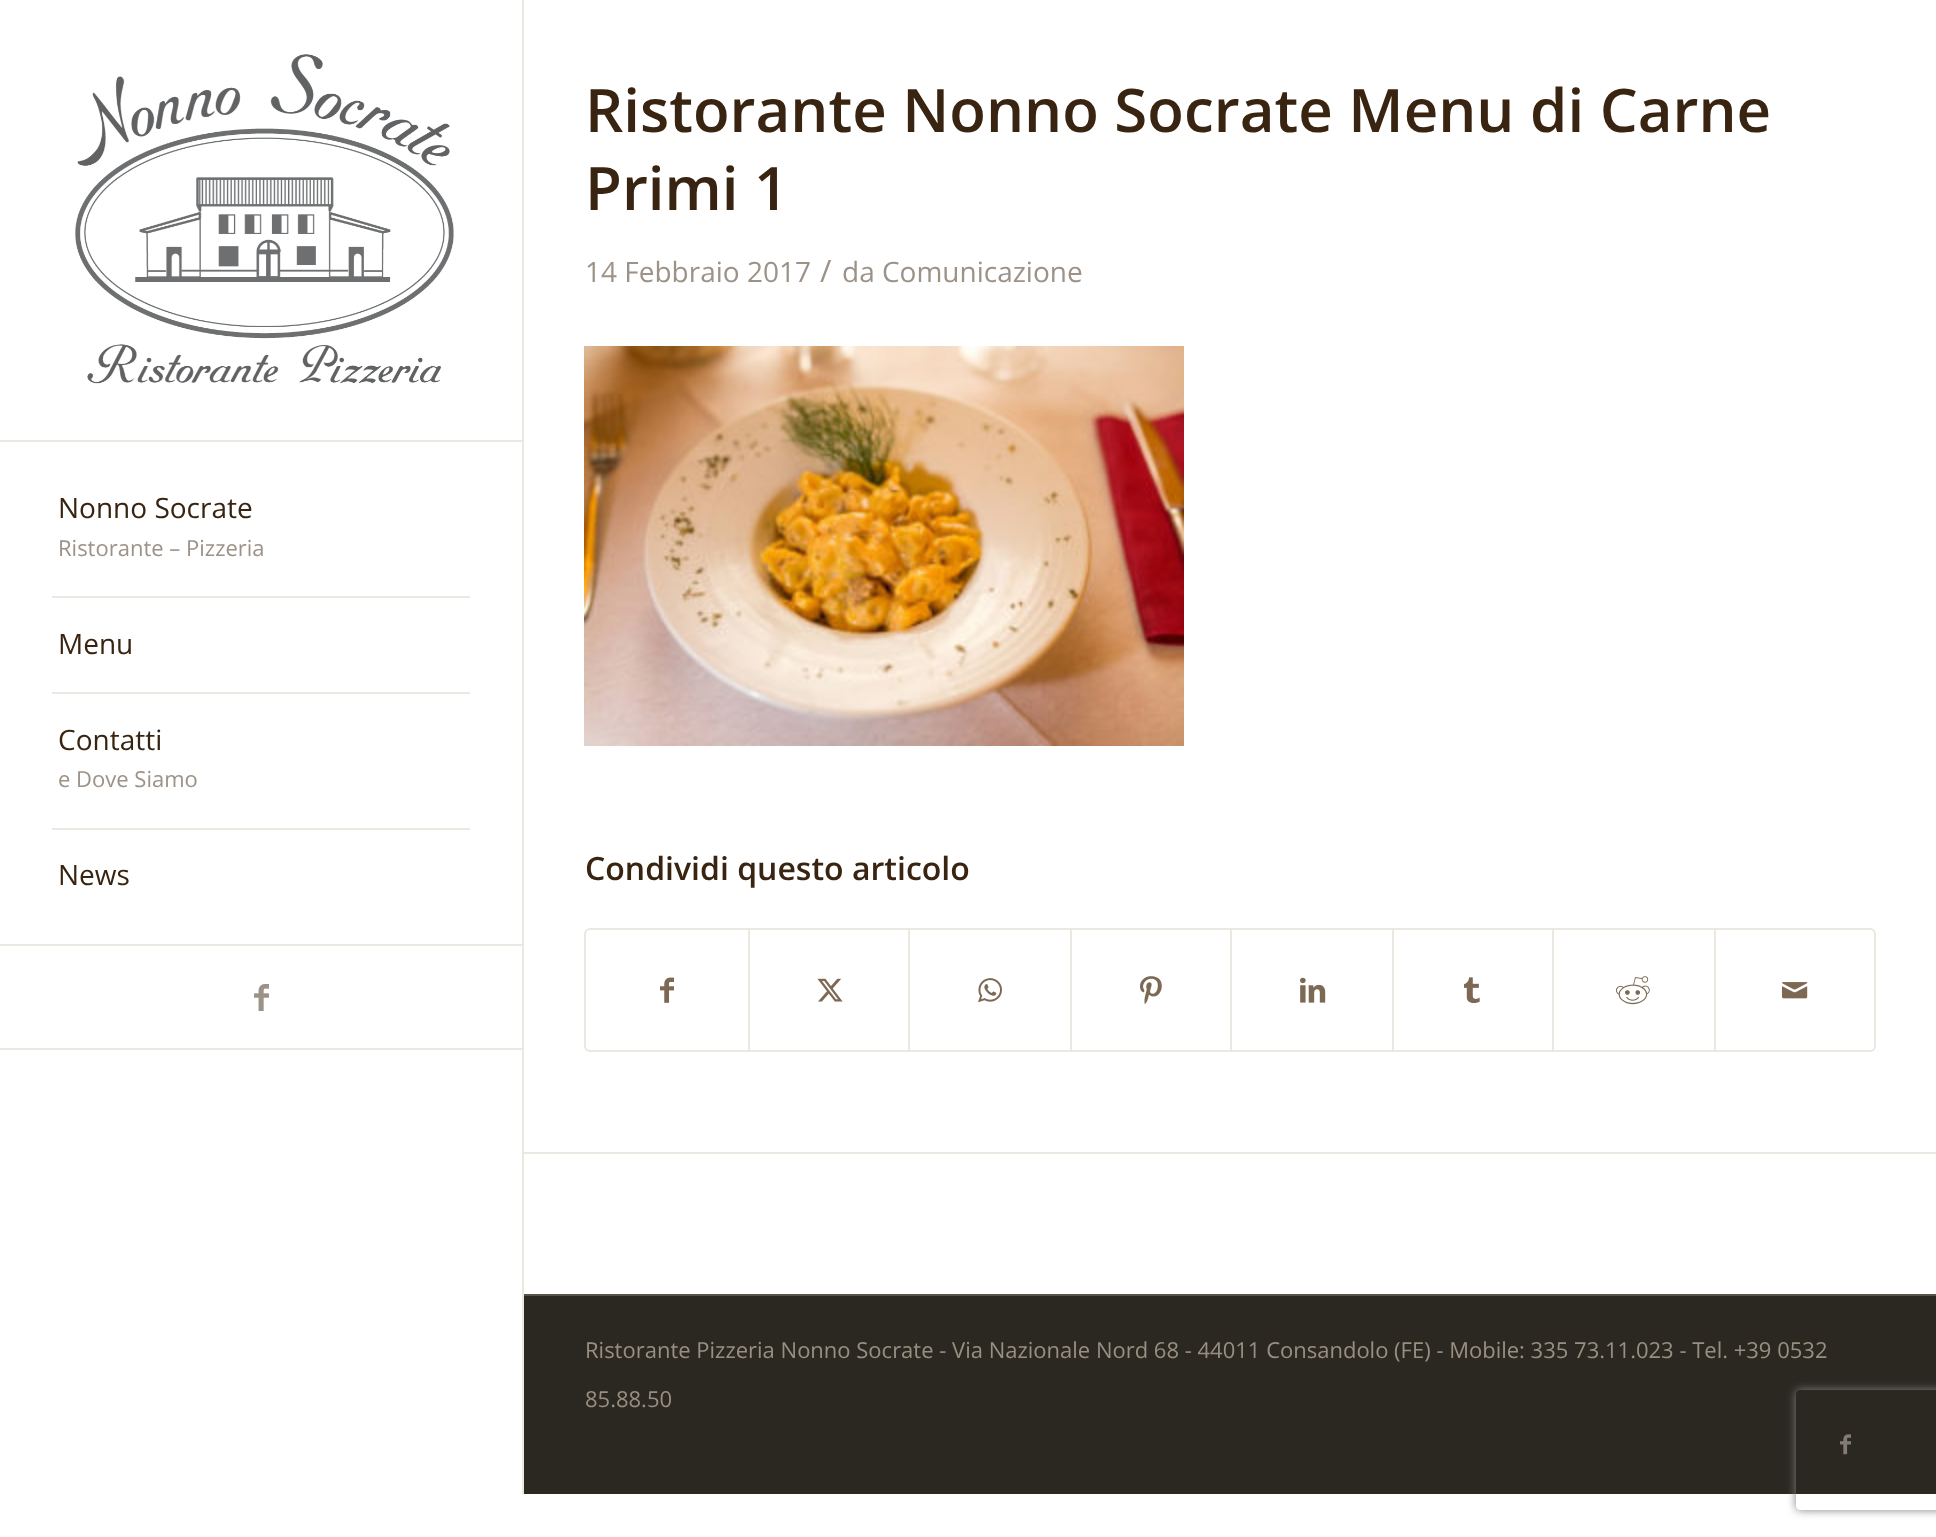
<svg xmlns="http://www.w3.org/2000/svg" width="1936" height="1537">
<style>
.a{font:28px Open Sans;fill:#382410}
.b{font:22px Open Sans;fill:#9c9288}
.c{font:600 60px Open Sans;fill:#382410}
.d{font:28px Open Sans;fill:#9c9288}
.e{font:31px Open Sans;fill:#9c9288}
.f{font:600 32px Open Sans;fill:#382410}
.g{font:22px Open Sans;fill:#988f81}
</style>
<defs>
<clipPath id="clip1"><path d="M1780 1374h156v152h-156zm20 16h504c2 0 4 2 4 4v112c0 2-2 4-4 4h-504c-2 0-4-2-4-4v-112c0-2 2-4 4-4z" clip-rule="evenodd"/></clipPath>
</defs>
<rect width="100%" height="100%" fill="#fff"/>
<path fill="#ebe8e2" d="M0 1048h522v2H0z"/>
<path fill="#ebe8e2" d="M0 440h522v2H0z"/>
<image href="1.png" x="75" y="54" width="379" height="330"/>
<path fill="#ebe8e2" d="M52 596h418v2H52z"/>
<path fill="#ebe8e2" d="M52 692h418v2H52z"/>
<path fill="#ebe8e2" d="M52 828h418v2H52z"/>
<path fill="#ebe8e2" d="M0 944h522v2H0z"/>
<image href="2.png" x="254" y="984" width="15" height="27"/>
<path fill="#ebe8e2" d="M522 0h2v1494H522z"/>
<image href="3.png" x="584" y="346" width="600" height="400"/>
<rect fill="none" stroke="#ebe8e2" stroke-width="2" x="585" y="929" width="1290" height="122" rx="5"/>
<image href="4.png" x="660" y="977" width="14" height="26"/>
<path fill="#ebe8e2" d="M748 930h2v120H748z"/>
<image href="5.png" x="817" y="978" width="26" height="24"/>
<path fill="#ebe8e2" d="M908 930h2v120H908z"/>
<image href="6.png" x="978" y="978" width="24" height="25"/>
<path fill="#ebe8e2" d="M1070 930h2v120H1070z"/>
<image href="7.png" x="1140" y="976" width="22" height="29"/>
<path fill="#ebe8e2" d="M1230 930h2v120H1230z"/>
<image href="8.png" x="1300" y="977" width="26" height="26"/>
<path fill="#ebe8e2" d="M1392 930h2v120H1392z"/>
<image href="9.png" x="1464" y="977" width="16" height="27"/>
<path fill="#ebe8e2" d="M1552 930h2v120H1552z"/>
<image href="10.png" x="1616" y="976" width="34" height="29"/>
<path fill="#ebe8e2" d="M1714 930h2v120H1714z"/>
<image href="11.png" x="1782" y="982" width="26" height="17"/>
<path fill="#ebe8e2" d="M522 1152h1414v2H522z"/>
<path fill="#2b2822" d="M524 1296h1412v198H524z"/>
<path fill="#575149" d="M524 1294h1412v2H524z"/>
<image href="12.png" x="1840" y="1434" width="11" height="21"/>
<g clip-path="url(#clip1)">
<rect fill="#808080" filter="blur(5px)" x="1796" y="1390" width="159" height="120" rx="4"/>
</g>
<text class="a" x="58" y="518">Nonno Socrate</text>
<text class="b" x="58" y="556">Ristorante – Pizzeria</text>
<text class="a" x="58" y="654">Menu</text>
<text class="a" x="58" y="750">Contatti</text>
<text class="b" x="58" y="787">e Dove Siamo</text>
<text class="a" x="58" y="885">News</text>
<text class="c" x="585" y="132">Ristorante Nonno Socrate Menu di Carne</text>
<text class="c" x="585" y="210">Primi 1</text>
<text class="d" x="585" y="282">14 Febbraio 2017</text>
<text class="e" x="820" y="282">/</text>
<text class="d" x="842" y="282">da Comunicazione</text>
<text class="f" x="585" y="880">Condividi questo articolo</text>
<text class="g" x="585" y="1358">Ristorante Pizzeria Nonno Socrate - Via Nazionale Nord 68 - 44011 Consandolo (FE) - Mobile: 335 73.11.023 - Tel. +39 0532</text>
<text class="g" x="585" y="1407">85.88.50</text>
</svg>
